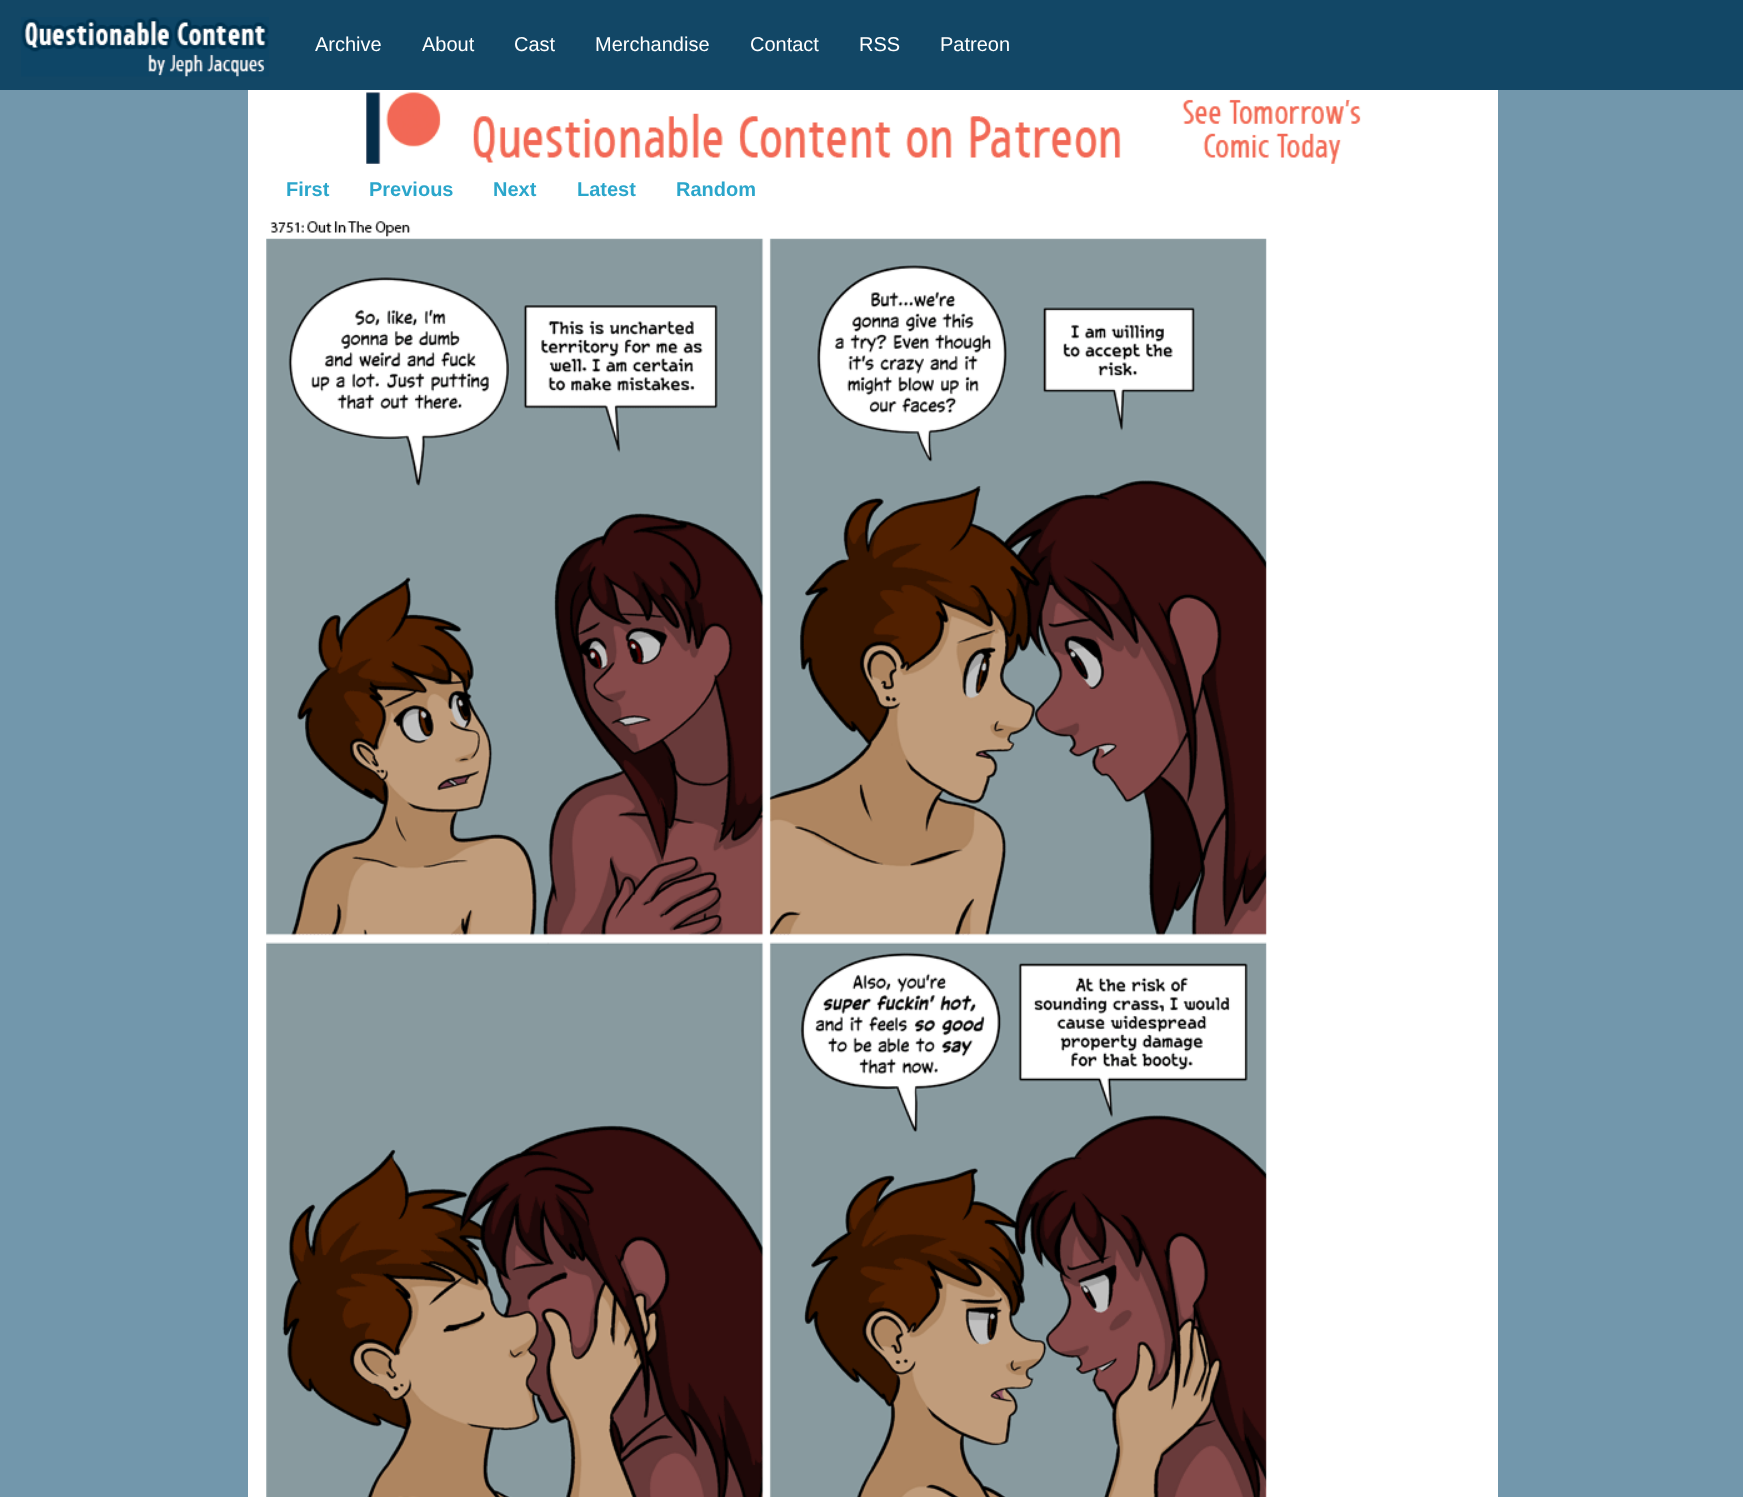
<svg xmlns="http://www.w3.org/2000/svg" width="1743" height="1497">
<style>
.a{font:20px Liberation Sans;fill:#fff}
.b{font:bold 20px Liberation Sans;fill:#2ba6cb}
</style>
<rect width="100%" height="100%" fill="#7297ac"/>
<path fill="#124766" d="M0 0h1743v90H0z"/>
<image href="1.png" x="21" y="17" width="248" height="60"/>
<path fill="#fff" d="M248 90h1250v1407H248z"/>
<image href="2.png" x="366" y="92" width="995" height="72"/>
<image href="3.png" x="266" y="221" width="1001" height="1276"/>
<text class="a" x="315" y="51">Archive</text>
<text class="a" x="422" y="51">About</text>
<text class="a" x="514" y="51">Cast</text>
<text class="a" x="595" y="51">Merchandise</text>
<text class="a" x="750" y="51">Contact</text>
<text class="a" x="859" y="51">RSS</text>
<text class="a" x="940" y="51">Patreon</text>
<text class="b" x="286" y="196">First</text>
<text class="b" x="369" y="196">Previous</text>
<text class="b" x="493" y="196">Next</text>
<text class="b" x="577" y="196">Latest</text>
<text class="b" x="676" y="196">Random</text>
</svg>
